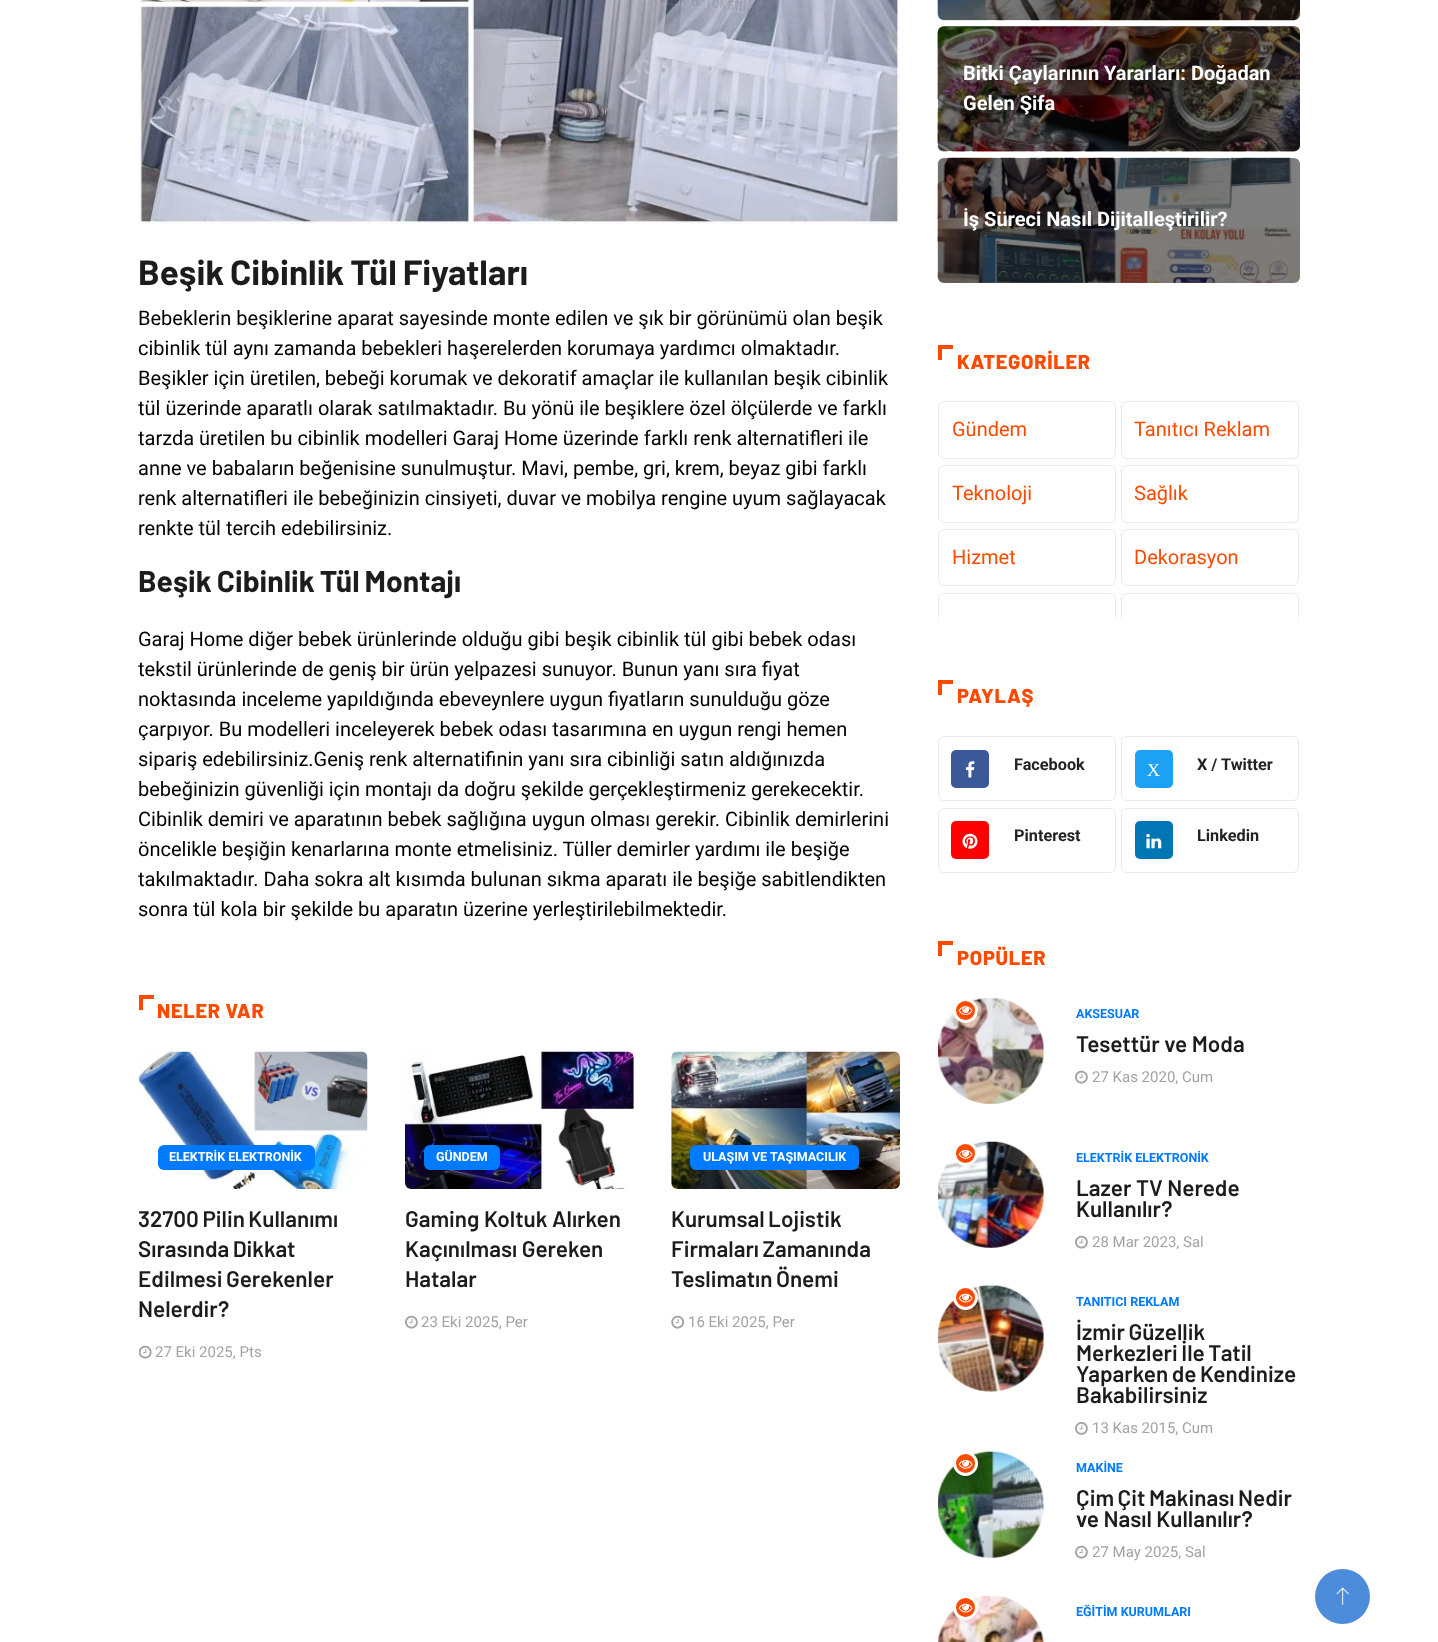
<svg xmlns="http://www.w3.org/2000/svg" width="1438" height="1642">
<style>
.a{font:bold 35px Barlow;fill:#1c1c1c}
.b{font:20px Roboto;fill:#000}
.c{font:bold 30px Barlow;fill:#1c1c1c}
.d{font:800 20px Barlow;letter-spacing:0.75px;fill:#fc4a00}
.e{font:bold 12.5px Roboto;fill:#fff}
.f{font:600 22.5px Barlow;fill:#1c1c1c}
.g{font:15px Roboto;fill:#a3a3a3}
.h{font:bold 20px Roboto;fill:#fff}
.i{font:20px Roboto;fill:#fc4a00}
.j{font:bold 16.25px Roboto;fill:#222}
.k{font:18px Liberation Serif;fill:#fff}
.l{font:bold 12.5px Roboto;fill:#007bff}
</style>
<defs>
<clipPath id="clip1"><path d="M938 401h362v217H938z"/></clipPath>
</defs>
<rect width="100%" height="100%" fill="#fff"/>
<image href="1.png" x="138" y="0" width="762" height="224"/>
<path fill="#fc4a00" d="M139 995h4v15H139z"/>
<path fill="#fc4a00" d="M139 995h15v4H139z"/>
<image href="2.png" x="138" y="1051" width="230" height="138"/>
<rect fill="#007bff" x="158" y="1145" width="157" height="25" rx="6"/>
<image href="3.png" x="139" y="1345" width="13" height="14"/>
<image href="4.png" x="405" y="1051" width="229" height="138"/>
<rect fill="#007bff" x="424" y="1145" width="76" height="25" rx="6"/>
<image href="5.png" x="405" y="1315" width="13" height="14"/>
<image href="6.png" x="671" y="1051" width="229" height="138"/>
<rect fill="#007bff" x="690" y="1145" width="169" height="25" rx="6"/>
<image href="7.png" x="671" y="1315" width="14" height="14"/>
<image href="8.png" x="937" y="0" width="363" height="21"/>
<rect fill="#00000080" x="938" y="-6" width="362" height="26" rx="6"/>
<image href="9.png" x="937" y="26" width="363" height="126"/>
<rect fill="#00000080" x="938" y="26" width="362" height="125" rx="6"/>
<image href="10.png" x="937" y="157" width="363" height="126"/>
<rect fill="#00000080" x="938" y="158" width="362" height="125" rx="6"/>
<path fill="#fc4a00" d="M938 345h4v15H938z"/>
<path fill="#fc4a00" d="M938 345h15v4H938z"/>
<rect fill="none" stroke="#eaeaea" x="938.5" y="401.5" width="177" height="57" rx="5.5"/>
<rect fill="none" stroke="#eaeaea" x="1121.5" y="401.5" width="177" height="57" rx="5.5"/>
<rect fill="none" stroke="#eaeaea" x="938.5" y="465.5" width="177" height="57" rx="5.5"/>
<rect fill="none" stroke="#eaeaea" x="1121.5" y="465.5" width="177" height="57" rx="5.5"/>
<rect fill="none" stroke="#eaeaea" x="938.5" y="529.5" width="177" height="56" rx="5.5"/>
<rect fill="none" stroke="#eaeaea" x="1121.5" y="529.5" width="177" height="56" rx="5.5"/>
<g clip-path="url(#clip1)">
<rect fill="none" stroke="#eaeaea" x="938.5" y="593.5" width="177" height="86" rx="5.5"/>
<rect fill="none" stroke="#eaeaea" x="1121.5" y="593.5" width="177" height="56" rx="5.5"/>
</g>
<path fill="#fc4a00" d="M938 680h4v15H938z"/>
<path fill="#fc4a00" d="M938 680h15v4H938z"/>
<rect fill="none" stroke="#eaeaea" x="938.5" y="736.5" width="177" height="64" rx="5.5"/>
<rect fill="#3b5998" x="951" y="750" width="38" height="38" rx="5"/>
<image href="11.png" x="965" y="761" width="10" height="17"/>
<rect fill="none" stroke="#eaeaea" x="1121.5" y="736.5" width="177" height="64" rx="5.5"/>
<rect fill="#1da1f2" x="1135" y="750" width="38" height="38" rx="5"/>
<rect fill="none" stroke="#eaeaea" x="938.5" y="808.5" width="177" height="64" rx="5.5"/>
<rect fill="#f00" x="951" y="821" width="38" height="38" rx="5"/>
<image href="12.png" x="962" y="833" width="16" height="16"/>
<rect fill="none" stroke="#eaeaea" x="1121.5" y="808.5" width="177" height="64" rx="5.5"/>
<rect fill="#0077b5" x="1135" y="821" width="38" height="38" rx="5"/>
<image href="13.png" x="1146" y="834" width="16" height="15"/>
<path fill="#fc4a00" d="M938 941h4v15H938z"/>
<path fill="#fc4a00" d="M938 941h15v4H938z"/>
<image href="14.png" x="938" y="998" width="107" height="107"/>
<circle fill="#fc4a00" stroke="#fff" stroke-width="3" cx="965.5" cy="1010.5" r="11"/>
<image href="15.png" x="958" y="1006" width="15" height="9"/>
<image href="5.png" x="1075" y="1070" width="13" height="14"/>
<image href="16.png" x="938" y="1141" width="107" height="107"/>
<circle fill="#fc4a00" stroke="#fff" stroke-width="3" cx="965.5" cy="1153.5" r="11"/>
<image href="17.png" x="958" y="1149" width="15" height="10"/>
<image href="5.png" x="1075" y="1235" width="13" height="14"/>
<image href="18.png" x="938" y="1284" width="107" height="108"/>
<circle fill="#fc4a00" stroke="#fff" stroke-width="3" cx="965.5" cy="1297.5" r="11"/>
<image href="19.png" x="958" y="1293" width="15" height="10"/>
<image href="20.png" x="1075" y="1422" width="13" height="13"/>
<image href="21.png" x="938" y="1451" width="107" height="107"/>
<circle fill="#fc4a00" stroke="#fff" stroke-width="3" cx="965.5" cy="1463.5" r="11"/>
<image href="17.png" x="958" y="1459" width="15" height="10"/>
<image href="5.png" x="1075" y="1545" width="13" height="14"/>
<image href="22.png" x="938" y="1595" width="106" height="47"/>
<circle fill="#fc4a00" stroke="#fff" stroke-width="3" cx="965.5" cy="1607.5" r="11"/>
<image href="19.png" x="958" y="1603" width="15" height="10"/>
<circle fill="#4c8cdb" cx="1342.5" cy="1596.5" r="27.5"/>
<image href="23.png" x="1336" y="1587" width="13" height="18"/>
<text class="a" x="138" y="285" word-spacing="-1">Beşik Cibinlik Tül Fiyatları</text>
<text class="b" x="138" y="325">Bebeklerin beşiklerine aparat sayesinde monte edilen ve şık bir görünümü olan beşik</text>
<text class="b" x="138" y="355">cibinlik tül aynı zamanda bebekleri haşerelerden korumaya yardımcı olmaktadır.</text>
<text class="b" x="138" y="385">Beşikler için üretilen, bebeği korumak ve dekoratif amaçlar ile kullanılan beşik cibinlik</text>
<text class="b" x="138" y="415">tül üzerinde aparatlı olarak satılmaktadır. Bu yönü ile beşiklere özel ölçülerde ve farklı</text>
<text class="b" x="138" y="445">tarzda üretilen bu cibinlik modelleri Garaj Home üzerinde farklı renk alternatifleri ile</text>
<text class="b" x="138" y="475">anne ve babaların beğenisine sunulmuştur. Mavi, pembe, gri, krem, beyaz gibi farklı</text>
<text class="b" x="138" y="505">renk alternatifleri ile bebeğinizin cinsiyeti, duvar ve mobilya rengine uyum sağlayacak</text>
<text class="b" x="138" y="535">renkte tül tercih edebilirsiniz.</text>
<text class="c" x="138" y="592" word-spacing="-1">Beşik Cibinlik Tül Montajı</text>
<text class="b" x="138" y="646">Garaj Home diğer bebek ürünlerinde olduğu gibi beşik cibinlik tül gibi bebek odası</text>
<text class="b" x="138" y="676">tekstil ürünlerinde de geniş bir ürün yelpazesi sunuyor. Bunun yanı sıra fiyat</text>
<text class="b" x="138" y="706">noktasında inceleme yapıldığında ebeveynlere uygun fiyatların sunulduğu göze</text>
<text class="b" x="138" y="736">çarpıyor. Bu modelleri inceleyerek bebek odası tasarımına en uygun rengi hemen</text>
<text class="b" x="138" y="766">sipariş edebilirsiniz.Geniş renk alternatifinin yanı sıra cibinliği satın aldığınızda</text>
<text class="b" x="138" y="796">bebeğinizin güvenliği için montajı da doğru şekilde gerçekleştirmeniz gerekecektir.</text>
<text class="b" x="138" y="826">Cibinlik demiri ve aparatının bebek sağlığına uygun olması gerekir. Cibinlik demirlerini</text>
<text class="b" x="138" y="856">öncelikle beşiğin kenarlarına monte etmelisiniz. Tüller demirler yardımı ile beşiğe</text>
<text class="b" x="138" y="886">takılmaktadır. Daha sokra alt kısımda bulunan sıkma aparatı ile beşiğe sabitlendikten</text>
<text class="b" x="138" y="916">sonra tül kola bir şekilde bu aparatın üzerine yerleştirilebilmektedir.</text>
<text class="d" x="157" y="1018">NELER VAR</text>
<text class="e" x="169" y="1161">ELEKTRİK ELEKTRONİK</text>
<text class="f" x="138" y="1227" word-spacing="-1">32700 Pilin Kullanımı</text>
<text class="f" x="138" y="1257" word-spacing="-1">Sırasında Dikkat</text>
<text class="f" x="138" y="1287" word-spacing="-1">Edilmesi Gerekenler</text>
<text class="f" x="138" y="1317">Nelerdir?</text>
<text class="g" x="155" y="1357">27 Eki 2025, Pts</text>
<text class="e" x="436" y="1161">GÜNDEM</text>
<text class="f" x="405" y="1227">Gaming Koltuk Alırken</text>
<text class="f" x="405" y="1257">Kaçınılması Gereken</text>
<text class="f" x="405" y="1287">Hatalar</text>
<text class="g" x="421" y="1327">23 Eki 2025, Per</text>
<text class="e" x="703" y="1161">ULAŞIM VE TAŞIMACILIK</text>
<text class="f" x="671" y="1227" word-spacing="-1">Kurumsal Lojistik</text>
<text class="f" x="671" y="1257" word-spacing="-1">Firmaları Zamanında</text>
<text class="f" x="671" y="1287" word-spacing="-1">Teslimatın Önemi</text>
<text class="g" x="688" y="1327">16 Eki 2025, Per</text>
<text class="h" x="963" y="80">Bitki Çaylarının Yararları: Doğadan</text>
<text class="h" x="963" y="110">Gelen Şifa</text>
<text class="h" x="963" y="226">İş Süreci Nasıl Dijitalleştirilir?</text>
<text class="d" x="957" y="369">KATEGORİLER</text>
<text class="i" x="952" y="436">Gündem</text>
<text class="i" x="1134" y="436">Tanıtıcı Reklam</text>
<text class="i" x="952" y="500">Teknoloji</text>
<text class="i" x="1134" y="500">Sağlık</text>
<text class="i" x="952" y="564">Hizmet</text>
<text class="i" x="1134" y="564">Dekorasyon</text>
<text class="d" x="957" y="703">PAYLAŞ</text>
<text class="j" x="1014" y="770">Facebook</text>
<text class="k" x="1147" y="776">X</text>
<text class="j" x="1197" y="770">X / Twitter</text>
<text class="j" x="1014" y="841">Pinterest</text>
<text class="j" x="1197" y="841">Linkedin</text>
<text class="d" x="957" y="965">POPÜLER</text>
<text class="l" x="1076" y="1018">AKSESUAR</text>
<text class="f" x="1076" y="1052">Tesettür ve Moda</text>
<text class="g" x="1092" y="1082">27 Kas 2020, Cum</text>
<text class="l" x="1076" y="1162">ELEKTRİK ELEKTRONİK</text>
<text class="f" x="1076" y="1196">Lazer TV Nerede</text>
<text class="f" x="1076" y="1217">Kullanılır?</text>
<text class="g" x="1092" y="1247">28 Mar 2023, Sal</text>
<text class="l" x="1076" y="1306">TANITICI REKLAM</text>
<text class="f" x="1076" y="1340" word-spacing="-1">İzmir Güzellik</text>
<text class="f" x="1076" y="1361" word-spacing="-1">Merkezleri İle Tatil</text>
<text class="f" x="1076" y="1382" word-spacing="-1">Yaparken de Kendinize</text>
<text class="f" x="1076" y="1403">Bakabilirsiniz</text>
<text class="g" x="1092" y="1433">13 Kas 2015, Cum</text>
<text class="l" x="1076" y="1472">MAKİNE</text>
<text class="f" x="1076" y="1506" word-spacing="-1">Çim Çit Makinası Nedir</text>
<text class="f" x="1076" y="1527">ve Nasıl Kullanılır?</text>
<text class="g" x="1092" y="1557">27 May 2025, Sal</text>
<text class="l" x="1076" y="1616">EĞİTİM KURUMLARI</text>
</svg>
